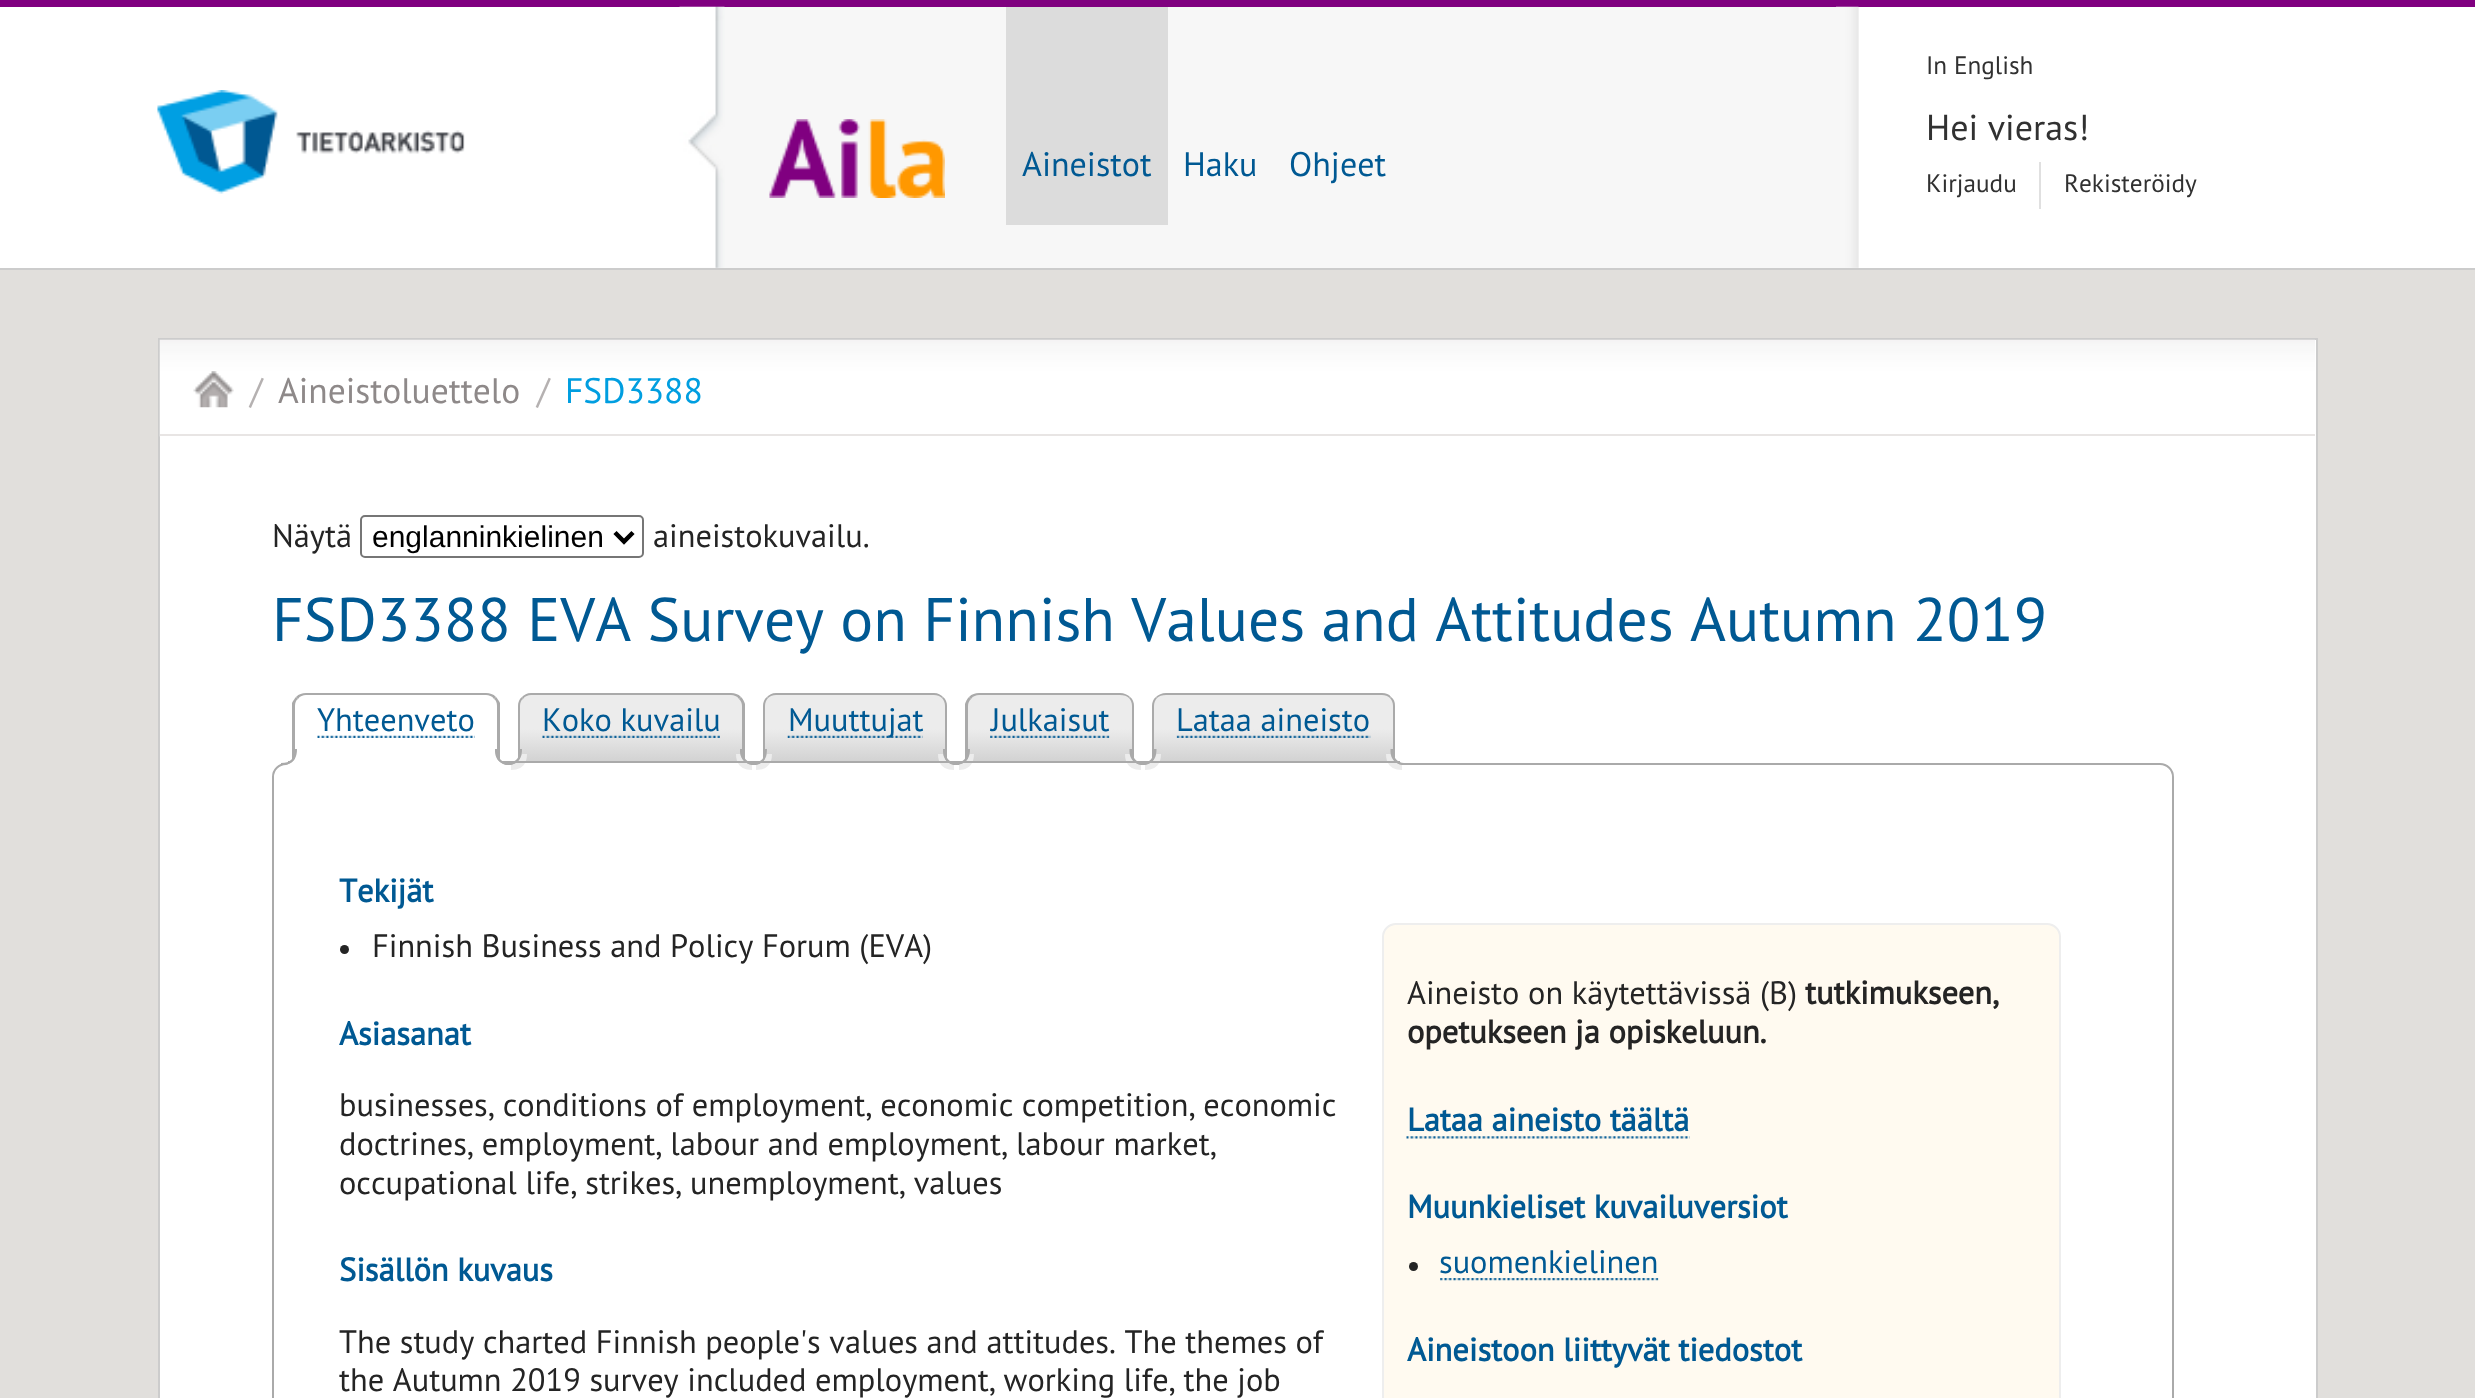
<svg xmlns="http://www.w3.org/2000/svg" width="2475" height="1398">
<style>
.a{font:34px PT Sans;fill:#005993}
.b{font:25.25px PT Sans;fill:#313131}
.c{font:36px PT Sans;fill:#313131}
.d{font:35.5px PT Sans;fill:#b5b1b1}
.e{font:35.5px PT Sans;fill:#8e8989}
.f{font:35.5px PT Sans;fill:#009ee0}
.g{font:32.4px PT Sans;fill:#242424}
.h{font:30px Liberation Sans;fill:#000}
.i{font:61.55px PT Sans;fill:#005993}
.j{font:32.4px PT Sans;fill:#005993}
.k{font:bold 32.4px PT Sans;fill:#005993}
.l{font:bold 32.4px PT Sans;fill:#242424}
</style>
<defs>
<clipPath id="clip1"><path d="M532 693h199c7.5 0 14 6.5 14 14v58h-227v-58c0-7.5 6.5-14 14-14z"/></clipPath>
<linearGradient id="g1" gradientUnits="userSpaceOnUse" x1="631" y1="695" x2="631" y2="763"><stop offset="0.5" stop-color="#ececec"/><stop offset="1" stop-color="#d1d1d1"/></linearGradient>
<clipPath id="clip2"><path d="M777 693h156c7.5 0 14 6.5 14 14v58h-184v-58c0-7.5 6.5-14 14-14z"/></clipPath>
<linearGradient id="g2" gradientUnits="userSpaceOnUse" x1="855" y1="695" x2="855" y2="763"><stop offset="0.5" stop-color="#ececec"/><stop offset="1" stop-color="#d1d1d1"/></linearGradient>
<clipPath id="clip3"><path d="M979 693h141c7.5 0 14 6.5 14 14v58h-169v-58c0-7.5 6.5-14 14-14z"/></clipPath>
<linearGradient id="g3" gradientUnits="userSpaceOnUse" x1="1050" y1="695" x2="1050" y2="763"><stop offset="0.5" stop-color="#ececec"/><stop offset="1" stop-color="#d1d1d1"/></linearGradient>
<clipPath id="clip4"><path d="M1166 693h215c7.5 0 14 6.5 14 14v58h-243v-58c0-7.5 6.5-14 14-14z"/></clipPath>
<linearGradient id="g4" gradientUnits="userSpaceOnUse" x1="1274" y1="695" x2="1274" y2="763"><stop offset="0.5" stop-color="#ececec"/><stop offset="1" stop-color="#d1d1d1"/></linearGradient>
</defs>
<rect width="100%" height="100%" fill="#e1dfdc"/>
<path fill="#fff" d="M0 7h2475v261H0z"/>
<path fill="#800080" d="M0 0h2475v7H0z"/>
<path fill="#ccc" d="M0 268h2475v2H0z"/>
<image href="1.png" x="157" y="90" width="308" height="104"/>
<path fill="#f7f7f7" d="M680 7h1179v261H680z"/>
<image href="2.png" x="679" y="6" width="46" height="262"/>
<image href="3.png" x="769" y="119" width="176" height="79"/>
<image href="4.png" x="1836" y="6" width="23" height="262"/>
<path fill="#dcdcdc" d="M1006 7h162v218H1006z"/>
<path fill="#e0e0e0" d="M2039 162h2v47H2039z"/>
<path fill="#fff" stroke="#ccc" stroke-width="2" d="M159 339h2158v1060H159z"/>
<image href="5.png" x="159" y="339" width="2156" height="98"/>
<path fill="#e8e5e4" d="M160 434h2155v2H160z"/>
<image href="6.png" x="193" y="371" width="41" height="37"/>
<rect fill="none" stroke="#767676" stroke-width="2" x="361" y="516" width="282" height="41" rx="4"/>
<path fill="none" stroke="#000" stroke-width="4.5" d="M615 532.5l9 9l9-9"/>
<g clip-path="url(#clip1)">
<path fill="url(#g1)" d="M518 695h227v66H518z"/>
</g>
<path fill="#aaa" d="M531 693c-4 0-7 2-9 4l1 2c2-3 5-4 8-4h200c3 0 6 1 8 4l2-2c-3-3-6-4-10-4z"/>
<rect fill="none" stroke="#aaa" stroke-width="2" x="273" y="764" width="1900" height="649" rx="13"/>
<path fill="#aaa" d="M745 704v61l-3-3v-56c0-3-1-5-3-7l2-2c2 2 3 4 4 7z"/>
<path fill="#fff" d="M745 765l-3-3v1h-222v-1l-2 3z"/>
<path fill="#aaa" d="M522 697c-3 2-4 6-4 9v58l2-2v-56c0-3 1-6 3-7z"/>
<path fill="#ececec" d="M511 765v5c10.5 0 16-5.5 16-16h-5c-1.5 5.5-5.5 9.5-11 11z"/>
<path fill="#aaa" fill-rule="evenodd" d="M506 749h16c0 11-5 16-16 16zm0 0h14c0 9.5-4.5 14-14 14z"/>
<path fill="#ececec" d="M736 754c0 10.5 5.5 16 16 16v-5c-6-1-10.5-5.5-11.5-11z"/>
<path fill="#aaa" fill-rule="evenodd" d="M740 749h16v16h-2c-7.5 0-14-6-14-13.5zm2.5 0h13.5v14h-2c-6.5 0-11.5-5.5-11.5-11.5z"/>
<g clip-path="url(#clip2)">
<path fill="url(#g2)" d="M763 695h184v66H763z"/>
</g>
<path fill="#aaa" d="M776 693c-4 0-7 2-9 4l1 1c2-2 5-3 8-3h158c3 0 6 1 8 3l1-1c-2-2-5-4-9-4z"/>
<path fill="#aaa" d="M943 697c3 2 4 6 4 9v59l-2-2v-57c0-3-1-6-3-8z"/>
<path fill="#fff" d="M763 765h184l-2-2h-180z"/>
<path fill="#aaa" d="M767 697c-3 2-4 6-4 9v59l2-2v-57c0-3 1-6 3-8z"/>
<path fill="#ececec" d="M756 765v5c10.5 0 16-5.5 16-16h-5c-1 5.5-5.5 10-11 11z"/>
<path fill="#aaa" fill-rule="evenodd" d="M751.5 749h15.5c0 11-5 16-15.5 16zm0 0h13.5c0 9.5-4 14-13.5 14z"/>
<path fill="#ececec" d="M938 754c0 10.5 5.5 16 16 16v-5c-5.5-1-10-5.5-11-11z"/>
<path fill="#aaa" fill-rule="evenodd" d="M943 749h15.5v16h-2.5c-7 0-13-6-13-13.5zm2 0h13.5v14h-2.5c-6 0-11-5.5-11-11.5z"/>
<g clip-path="url(#clip3)">
<path fill="url(#g3)" d="M965 695h169v66H965z"/>
</g>
<path fill="#aaa" d="M979 693c-4 0-7 1-10 4l2 2c2-3 5-4 8-4h141c4 0 7 1 9 3l1-1c-2-2-6-4-10-4z"/>
<path fill="#aaa" d="M1134 765v-59c0-3-1-7-4-9l-1 1c2 2 3 5 3 8v57z"/>
<path fill="#fff" d="M1134 765l-2-2h-164v-1l-3 3z"/>
<path fill="#aaa" d="M965 765v-61c1-3 2-5 4-7l2 2c-2 2-3 4-3 7v56z"/>
<path fill="#ececec" d="M959 764.5v5.5c10 0 15-6.5 15-16h-4.5c-1 5.5-5 9.5-10.5 10.5z"/>
<path fill="#aaa" fill-rule="evenodd" d="M954 749h16c0 11-5.5 16-16 16zm0 0h13.5c0 9.5-4 14-13.5 14z"/>
<path fill="#ececec" d="M1125 754c0 10.5 5.5 16 16 16v-5c-5.5-1-10-5.5-11.5-11z"/>
<path fill="#aaa" fill-rule="evenodd" d="M1129.5 749h15.5v16h-2c-7.5 0-13.5-6-13.5-13.5zm2.5 0h13v14h-2c-6 0-11-5.5-11-11.5z"/>
<g clip-path="url(#clip4)">
<path fill="url(#g4)" d="M1152 695h243v66H1152z"/>
</g>
<path fill="#aaa" d="M1166 693c-4 0-8 2-10 4l1 1c2-2 5-3 9-3h216c3 0 6 1 8 3l1-1c-2-3-5-4-9-4z"/>
<path fill="#aaa" d="M1395 765v-59c0-4-1-7-4-9l-1 1c2 2 3 5 3 8v57z"/>
<path fill="#fff" d="M1395 765l-2-2h-239l-2 2z"/>
<path fill="#aaa" d="M1152 765l2-2v-57c0-3 1-6 3-8l-1-1c-3 2-4 6-4 9z"/>
<path fill="#ececec" d="M1145 765v5c10.5 0 16-5.5 16-16h-4.5c-1.5 5.5-6 10-11.5 11z"/>
<path fill="#aaa" fill-rule="evenodd" d="M1141 749h15.5c0 11-5 16-15.5 16zm0 0h13c0 9.5-4 14-13 14z"/>
<path fill="#ececec" d="M1386 754c0 10.5 5.5 16 16 16v-5c-5.5-1-10-5.5-11.5-11z"/>
<path fill="#aaa" fill-rule="evenodd" d="M1390.5 749h15.5v16h-2c-7.5 0-13.5-6-13.5-13.5zm2.5 0h13v14h-2c-6 0-11-5.5-11-11.5z"/>
<path fill="#aaa" d="M288 761h1112v2H288z"/>
<path fill="#fff" d="M307 693h179c7.5 0 14 6.5 14 14v58h-207v-58c0-7.5 6.5-14 14-14z"/>
<path fill="#aaa" d="M306 693c-4 0-7 1-10 4l2 2c2-3 5-4 8-4h180c3 0 6 1 8 4l2-2c-3-3-6-4-10-4z"/>
<path fill="#aaa" d="M500 703v62l-3-3v-56c0-3-1-6-3-7l2-2c1 1 3 4 4 6z"/>
<path fill="#fff" d="M500 765l-3-3v1h-202v-1l-3 3z"/>
<path fill="#aaa" d="M292 765v-62c1-2 3-5 4-6l2 2c-2 1-3 4-3 7v56z"/>
<image href="7.png" x="317" y="735" width="158" height="3"/>
<path fill="#fff" d="M286 765v5c10.5 0 16-5.5 16-16h-5c-1.5 5.5-5.5 9.5-11 11z"/>
<path fill="#aaa" fill-rule="evenodd" d="M281 749h16c0 11-5 16-16 16zm0 0h14c0 9.5-4.5 14-14 14z"/>
<path fill="#fff" d="M491 754c0 9.5 5 16 15 16v-5c-5.5-1.5-9.5-5.5-11-11z"/>
<path fill="#aaa" fill-rule="evenodd" d="M495 749h16v16h-2.5c-7.5 0-13.5-6-13.5-13.5zm2 0h14v14h-2.5c-6 0-11.5-5.5-11.5-11.5z"/>
<image href="8.png" x="542" y="735" width="178" height="3"/>
<image href="9.png" x="787" y="735" width="136" height="3"/>
<image href="10.png" x="990" y="735" width="120" height="3"/>
<image href="11.png" x="1176" y="735" width="195" height="3"/>
<circle fill="#242424" cx="344.5" cy="949.5" r="4.5"/>
<rect fill="#fffaf0" stroke="#eee" stroke-width="2" x="1383" y="924" width="677" height="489" rx="13"/>
<image href="12.png" x="1406" y="1136" width="284" height="3"/>
<circle fill="#242424" cx="1413.5" cy="1266.5" r="4.5"/>
<image href="13.png" x="1440" y="1278" width="219" height="3"/>
<text class="a" x="1022" y="176">Aineistot</text>
<text class="a" x="1183" y="176">Haku</text>
<text class="a" x="1289" y="176">Ohjeet</text>
<text class="b" x="1926" y="74">In English</text>
<text class="c" x="1926" y="140">Hei vieras!</text>
<text class="b" x="1926" y="192">Kirjaudu</text>
<text class="b" x="2064" y="192">Rekisteröidy</text>
<text class="d" x="250" y="403">/</text>
<text class="e" x="278" y="403">Aineistoluettelo</text>
<text class="d" x="537" y="403">/</text>
<text class="f" x="565" y="403">FSD3388</text>
<text class="g" x="272" y="547">Näytä</text>
<text class="h" x="372" y="547">englanninkielinen</text>
<text class="g" x="653" y="547">aineistokuvailu.</text>
<text class="i" x="272" y="641">FSD3388 EVA Survey on Finnish Values and Attitudes Autumn 2019</text>
<text class="j" x="317" y="731">Yhteenveto</text>
<text class="j" x="542" y="731">Koko kuvailu</text>
<text class="j" x="788" y="731">Muuttujat</text>
<text class="j" x="991" y="731">Julkaisut</text>
<text class="j" x="1176" y="731">Lataa aineisto</text>
<text class="k" x="339" y="902">Tekijät</text>
<text class="g" x="372" y="957">Finnish Business and Policy Forum (EVA)</text>
<text class="k" x="339" y="1045">Asiasanat</text>
<text class="g" x="1407" y="1004">Aineisto on käytettävissä (B)</text>
<text class="l" x="1805" y="1004">tutkimukseen,</text>
<text class="l" x="1407" y="1043">opetukseen ja opiskeluun.</text>
<text class="k" x="1407" y="1131">Lataa aineisto täältä</text>
<text class="k" x="1407" y="1218">Muunkieliset kuvailuversiot</text>
<text class="j" x="1439" y="1273">suomenkielinen</text>
<text class="k" x="1407" y="1361">Aineistoon liittyvät tiedostot</text>
<text class="g" x="339" y="1116">businesses, conditions of employment, economic competition, economic</text>
<text class="g" x="339" y="1155">doctrines, employment, labour and employment, labour market,</text>
<text class="g" x="339" y="1194">occupational life, strikes, unemployment, values</text>
<text class="k" x="339" y="1281">Sisällön kuvaus</text>
<text class="g" x="339" y="1353">The study charted Finnish people's values and attitudes. The themes of</text>
<text class="g" x="339" y="1391">the Autumn 2019 survey included employment, working life, the job</text>
</svg>
